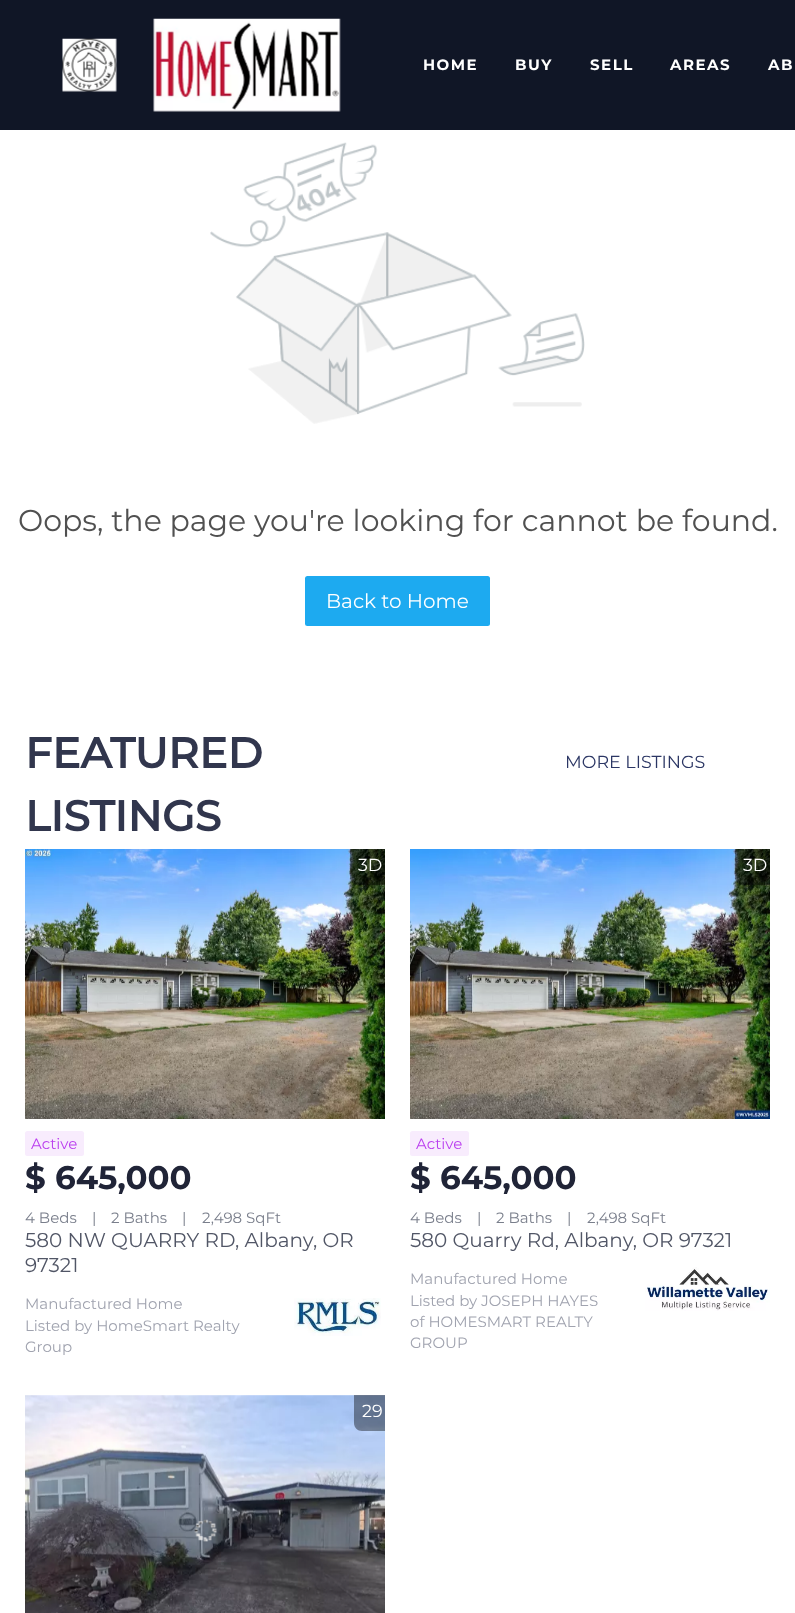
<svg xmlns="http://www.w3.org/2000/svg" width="795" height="1613">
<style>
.a{font:bold 15px 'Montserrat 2';letter-spacing:1.5px;fill:#fff}
.b{font:30px Montserrat;fill:#505050}
.c{font:20px Montserrat;fill:#fff}
.d{font:bold 42.5px Montserrat;fill:#31364d}
.e{font:17.5px Montserrat;fill:#2b3664}
.f{font:17.5px Montserrat;fill:#fff}
.g{font:15px Montserrat;fill:#bb40ef}
.h{font:bold 32.5px 'Montserrat 2';fill:#202437}
.i{font:15px Montserrat;fill:#797e8b}
.j{font:20px Montserrat;fill:#515666}
.k{font:15px Montserrat;fill:#a0a3af}
</style>
<rect width="100%" height="100%" fill="#fff"/>
<path fill="#101626" d="M0 0h795v130H0z"/>
<image href="1.png" x="62" y="38" width="55" height="54"/>
<image href="2.png" x="153" y="18" width="188" height="94"/>
<image href="3.png" x="210" y="142" width="375" height="282"/>
<rect fill="#1daaf0" x="305" y="576" width="185" height="50" rx="2.5"/>
<image href="4.png" x="25" y="849" width="360" height="270"/>
<image href="5.png" x="194" y="973" width="23" height="23"/>
<path fill="#00000066" d="M350 849h35v36h-27c-4.5 0-8-3.5-8-8z"/>
<rect fill="#f8ecfd" x="25" y="1131" width="59" height="25" rx="2.5"/>
<image href="6.png" x="294" y="1298" width="87" height="38"/>
<image href="7.png" x="410" y="849" width="360" height="270"/>
<image href="8.png" x="579" y="973" width="23" height="23"/>
<path fill="#00000066" d="M735 849h35v36h-27c-4.5 0-8-3.5-8-8z"/>
<rect fill="#f8ecfd" x="410" y="1131" width="59" height="25" rx="2.5"/>
<image href="9.png" x="645" y="1267" width="125" height="44"/>
<image href="10.png" x="25" y="1395" width="360" height="218"/>
<image href="11.png" x="194" y="1519" width="23" height="23"/>
<path fill="#00000066" d="M354 1395h31v36h-23c-4.5 0-8-3.5-8-8z"/>
<text class="a" x="423" y="70">HOME</text>
<text class="a" x="515" y="70">BUY</text>
<text class="a" x="590" y="70">SELL</text>
<text class="a" x="670" y="70">AREAS</text>
<text class="a" x="768" y="70">AB</text>
<text class="b" x="18" y="531">Oops, the page you're looking for cannot be found.</text>
<text class="c" x="326" y="608">Back to Home</text>
<text class="d" x="25" y="768">FEATURED</text>
<text class="d" x="25" y="831">LISTINGS</text>
<text class="e" x="565" y="768">MORE LISTINGS</text>
<text class="f" x="358" y="871">3D</text>
<text class="g" x="31" y="1149">Active</text>
<text class="h" x="25" y="1189">$ 645,000</text>
<text class="i" x="25" y="1223">4 Beds</text>
<text class="i" x="92" y="1223">|</text>
<text class="i" x="111" y="1223">2 Baths</text>
<text class="i" x="182" y="1223">|</text>
<text class="i" x="202" y="1223">2,498 SqFt</text>
<text class="j" x="25" y="1247">580 NW QUARRY RD, Albany, OR</text>
<text class="j" x="25" y="1272">97321</text>
<text class="k" x="25" y="1309">Manufactured Home</text>
<text class="k" x="25" y="1331">Listed by HomeSmart Realty</text>
<text class="k" x="25" y="1352">Group</text>
<text class="f" x="743" y="871">3D</text>
<text class="g" x="416" y="1149">Active</text>
<text class="h" x="410" y="1189">$ 645,000</text>
<text class="i" x="410" y="1223">4 Beds</text>
<text class="i" x="477" y="1223">|</text>
<text class="i" x="496" y="1223">2 Baths</text>
<text class="i" x="567" y="1223">|</text>
<text class="i" x="587" y="1223">2,498 SqFt</text>
<text class="j" x="410" y="1247">580 Quarry Rd, Albany, OR 97321</text>
<text class="k" x="410" y="1284">Manufactured Home</text>
<text class="k" x="410" y="1306">Listed by JOSEPH HAYES</text>
<text class="k" x="410" y="1327">of HOMESMART REALTY</text>
<text class="k" x="410" y="1348">GROUP</text>
<text class="f" x="362" y="1417">29</text>
</svg>
